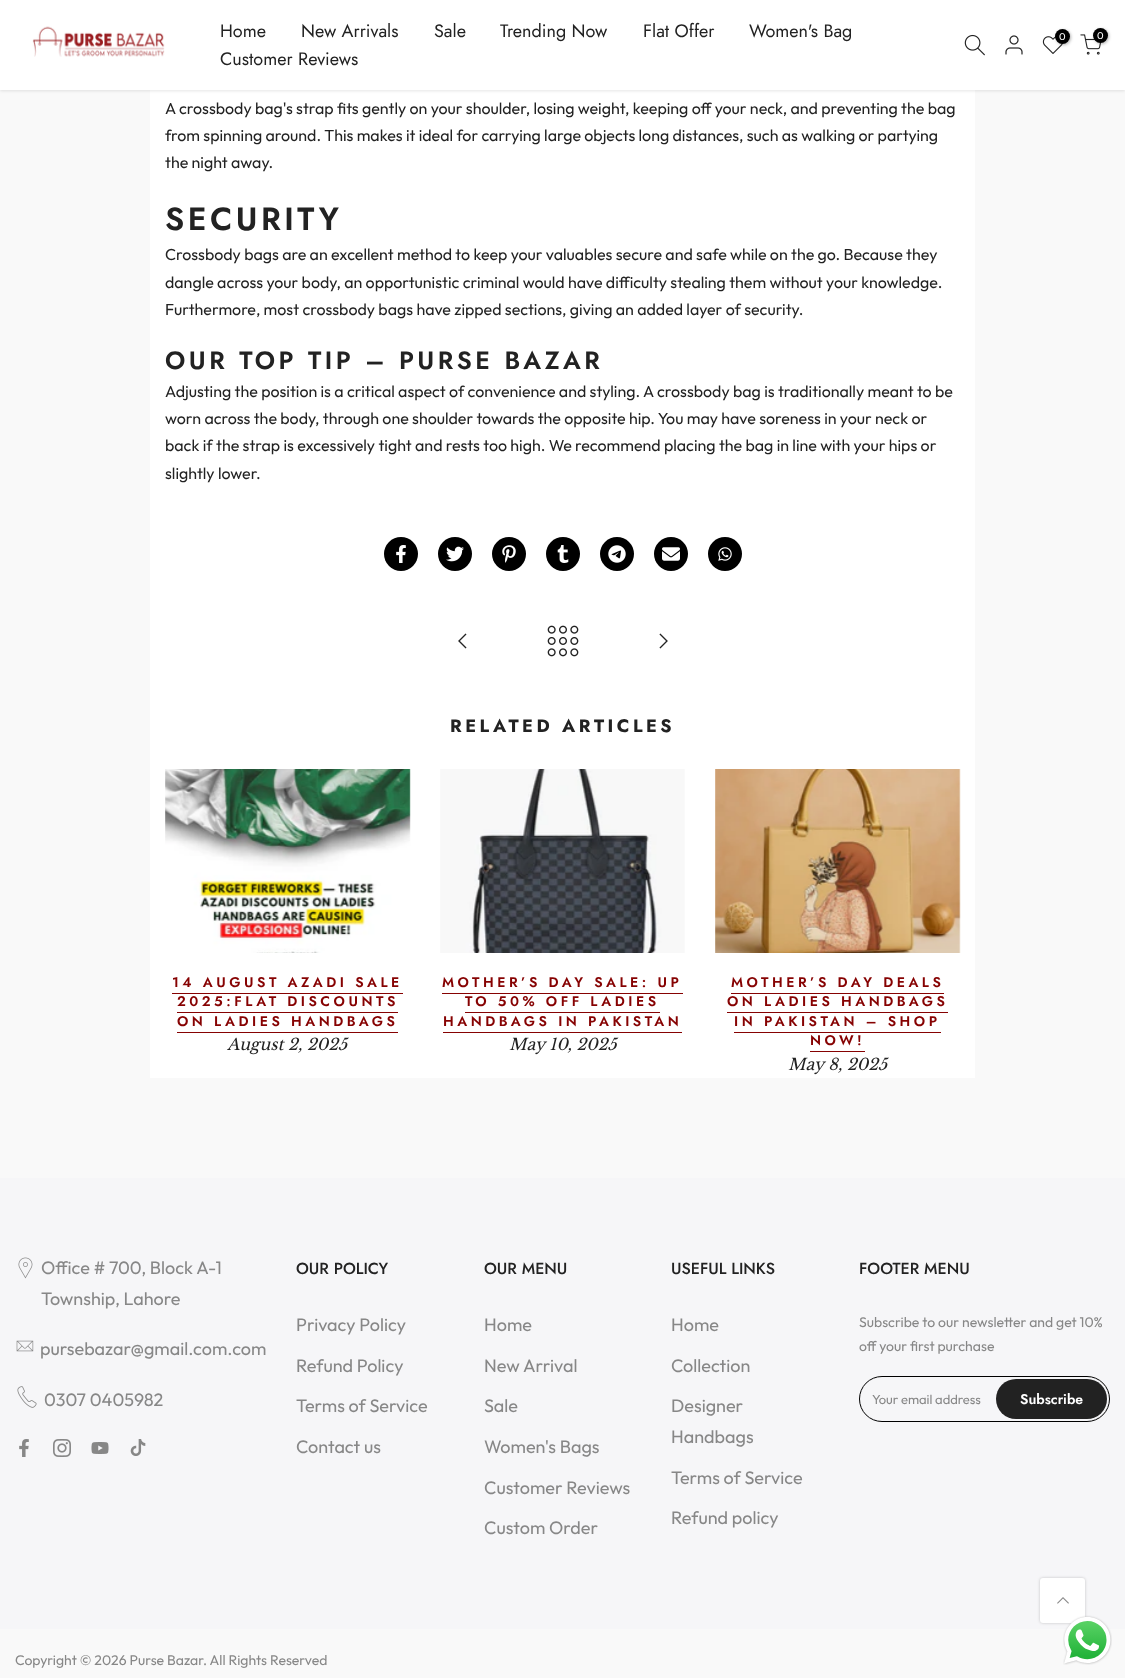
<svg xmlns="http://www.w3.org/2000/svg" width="1125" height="1678">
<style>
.a{font:18px Jost;fill:#222}
.b{font:10px Outfit;fill:#fff}
.c{font:16px Outfit;fill:#222}
.d{font:600 32px Jost;letter-spacing:3.5px;fill:#222}
.e{font:600 25px Jost;letter-spacing:3.5px;fill:#222}
.f{font:bold 18px Jost;letter-spacing:3.5px;fill:#222}
.g{font:600 14px Jost;letter-spacing:3.5px;fill:#860202}
.h{font:italic 16px Libre Baskerville;fill:#222}
.i{font:18px Outfit;fill:#878787}
.j{font:500 16px Jost;fill:#222}
.k{font:14px Outfit;fill:#878787}
.l{font:13px Outfit;fill:#878787}
.m{font:600 14px Jost;fill:#fff}
</style>
<rect width="100%" height="100%" fill="#f9f9f9"/>
<path fill="#fff" d="M150 90h825v988H150z"/>
<path fill="#0000001a" filter="blur(1.5px)" d="M0 1h1125v90H0z"/>
<path fill="#fff" d="M0 0h1125v90H0z"/>
<image href="1.png" x="32" y="26" width="133" height="31"/>
<image href="2.png" x="964" y="34" width="21" height="22"/>
<image href="3.png" x="1005" y="35" width="18" height="20"/>
<image href="4.png" x="1042" y="36" width="21" height="18"/>
<rect fill="#0000004d" filter="blur(1.5px)" x="1056" y="30" width="15" height="15" rx="7.5"/>
<circle fill="#000" cx="1062.5" cy="36.5" r="7.5"/>
<image href="5.png" x="1080" y="34" width="22" height="21"/>
<rect fill="#0000004d" filter="blur(1.5px)" x="1094" y="29" width="15" height="15" rx="7.5"/>
<circle fill="#000" cx="1100.5" cy="35.5" r="7.5"/>
<circle fill="#000" cx="401" cy="554" r="17"/>
<image href="6.png" x="396" y="545" width="10" height="18"/>
<circle fill="#000" cx="455" cy="554" r="17"/>
<image href="7.png" x="446" y="546" width="18" height="16"/>
<circle fill="#000" cx="509" cy="554" r="17"/>
<image href="8.png" x="502" y="545" width="14" height="18"/>
<circle fill="#000" cx="563" cy="554" r="17"/>
<image href="9.png" x="557" y="545" width="12" height="18"/>
<circle fill="#000" cx="617" cy="554" r="17"/>
<image href="10.png" x="608" y="545" width="18" height="18"/>
<circle fill="#000" cx="671" cy="554" r="17"/>
<image href="11.png" x="662" y="547" width="18" height="14"/>
<circle fill="#000" cx="725" cy="554" r="17"/>
<image href="12.png" x="718" y="547" width="14" height="14"/>
<image href="13.png" x="458" y="633" width="9" height="16"/>
<image href="14.png" x="547" y="625" width="32" height="32"/>
<image href="15.png" x="659" y="633" width="9" height="16"/>
<image href="16.png" x="165" y="769" width="246" height="184"/>
<path fill="#860202" d="M172 993h231v1H172z"/>
<path fill="#860202" d="M177 1012h221v1H177z"/>
<path fill="#860202" d="M177 1032h221v1H177z"/>
<image href="17.png" x="440" y="769" width="245" height="184"/>
<path fill="#860202" d="M442 993h241v1H442z"/>
<path fill="#860202" d="M465 1012h195v1H465z"/>
<path fill="#860202" d="M443 1032h239v1H443z"/>
<image href="18.png" x="715" y="769" width="246" height="184"/>
<path fill="#860202" d="M731 993h213v1H731z"/>
<path fill="#860202" d="M727 1012h221v1H727z"/>
<path fill="#860202" d="M734 1032h207v1H734z"/>
<path fill="#860202" d="M810 1051h55v1H810z"/>
<path fill="#f6f6f8" d="M0 1178h1125v451H0z"/>
<image href="19.png" x="18" y="1257" width="15" height="22"/>
<image href="20.png" x="16" y="1340" width="18" height="12"/>
<image href="21.png" x="17" y="1386" width="20" height="22"/>
<image href="22.png" x="19" y="1439" width="10" height="18"/>
<image href="23.png" x="53" y="1439" width="18" height="18"/>
<image href="24.png" x="91" y="1442" width="18" height="12"/>
<image href="25.png" x="130" y="1439" width="16" height="17"/>
<rect fill="none" stroke="#000" x="859.5" y="1376.5" width="250" height="45" rx="22.5"/>
<rect fill="#222" x="996" y="1379" width="111" height="40" rx="20"/>
<rect fill="#00000033" filter="blur(1.5px)" x="1040" y="1578" width="45" height="45" rx="3"/>
<rect fill="#fff" x="1040" y="1578" width="45" height="45" rx="3"/>
<image href="26.png" x="1057" y="1597" width="12" height="7"/>
<image href="27.png" x="1063" y="1615" width="49" height="50"/>
<text class="a" x="220" y="37">Home</text>
<text class="a" x="301" y="37">New Arrivals</text>
<text class="a" x="434" y="37">Sale</text>
<text class="a" x="500" y="37">Trending Now</text>
<text class="a" x="643" y="37">Flat Offer</text>
<text class="a" x="749" y="37">Women's Bag</text>
<text class="a" x="220" y="65">Customer Reviews</text>
<text class="b" x="1059" y="40">0</text>
<text class="b" x="1097" y="39">0</text>
<text class="c" x="165" y="114">A crossbody bag's strap fits gently on your shoulder, losing weight, keeping off your neck, and preventing the bag</text>
<text class="c" x="165" y="141">from spinning around. This makes it ideal for carrying large objects long distances, such as walking or partying</text>
<text class="c" x="165" y="168">the night away.</text>
<text class="d" x="165" y="230">SECURITY</text>
<text class="c" x="165" y="260">Crossbody bags are an excellent method to keep your valuables secure and safe while on the go. Because they</text>
<text class="c" x="165" y="288">dangle across your body, an opportunistic criminal would have difficulty stealing them without your knowledge.</text>
<text class="c" x="165" y="315">Furthermore, most crossbody bags have zipped sections, giving an added layer of security.</text>
<text class="e" x="165" y="369">OUR TOP TIP – PURSE BAZAR</text>
<text class="c" x="165" y="397">Adjusting the position is a critical aspect of convenience and styling. A crossbody bag is traditionally meant to be</text>
<text class="c" x="165" y="424">worn across the body, through one shoulder towards the opposite hip. You may have soreness in your neck or</text>
<text class="c" x="165" y="451">back if the strap is excessively tight and rests too high. We recommend placing the bag in line with your hips or</text>
<text class="c" x="165" y="479">slightly lower.</text>
<text class="f" x="450" y="732">RELATED ARTICLES</text>
<text class="g" x="172" y="987">14 AUGUST AZADI SALE</text>
<text class="g" x="177" y="1006">2025:FLAT DISCOUNTS</text>
<text class="g" x="177" y="1026">ON LADIES HANDBAGS</text>
<text class="h" x="227" y="1050">August 2, 2025</text>
<text class="g" x="442" y="987">MOTHER’S DAY SALE: UP</text>
<text class="g" x="465" y="1006">TO 50% OFF LADIES</text>
<text class="g" x="443" y="1026">HANDBAGS IN PAKISTAN</text>
<text class="h" x="509" y="1050">May 10, 2025</text>
<text class="g" x="731" y="987">MOTHER’S DAY DEALS</text>
<text class="g" x="727" y="1006">ON LADIES HANDBAGS</text>
<text class="g" x="734" y="1026">IN PAKISTAN – SHOP</text>
<text class="g" x="810" y="1045">NOW!</text>
<text class="h" x="788" y="1070">May 8, 2025</text>
<text class="i" x="41" y="1274">Office # 700, Block A-1</text>
<text class="i" x="41" y="1305">Township, Lahore</text>
<text class="i" x="40" y="1355">pursebazar@gmail.com.com</text>
<text class="i" x="44" y="1406">0307 0405982</text>
<text class="j" x="296" y="1274">OUR POLICY</text>
<text class="i" x="296" y="1331">Privacy Policy</text>
<text class="i" x="296" y="1372">Refund Policy</text>
<text class="i" x="296" y="1412">Terms of Service</text>
<text class="i" x="296" y="1453">Contact us</text>
<text class="j" x="484" y="1274">OUR MENU</text>
<text class="i" x="484" y="1331">Home</text>
<text class="i" x="484" y="1372">New Arrival</text>
<text class="i" x="484" y="1412">Sale</text>
<text class="i" x="484" y="1453">Women's Bags</text>
<text class="i" x="484" y="1494">Customer Reviews</text>
<text class="i" x="484" y="1534">Custom Order</text>
<text class="j" x="671" y="1274">USEFUL LINKS</text>
<text class="i" x="671" y="1331">Home</text>
<text class="i" x="671" y="1372">Collection</text>
<text class="i" x="671" y="1412">Designer</text>
<text class="i" x="671" y="1443">Handbags</text>
<text class="i" x="671" y="1484">Terms of Service</text>
<text class="i" x="671" y="1524">Refund policy</text>
<text class="j" x="859" y="1274">FOOTER MENU</text>
<text class="k" x="859" y="1327">Subscribe to our newsletter and get 10%</text>
<text class="k" x="859" y="1351">off your first purchase</text>
<text class="l" x="872" y="1404">Your email address</text>
<text class="m" x="1020" y="1404">Subscribe</text>
<text class="k" x="15" y="1665">Copyright © 2026 Purse Bazar. All Rights Reserved</text>
</svg>
